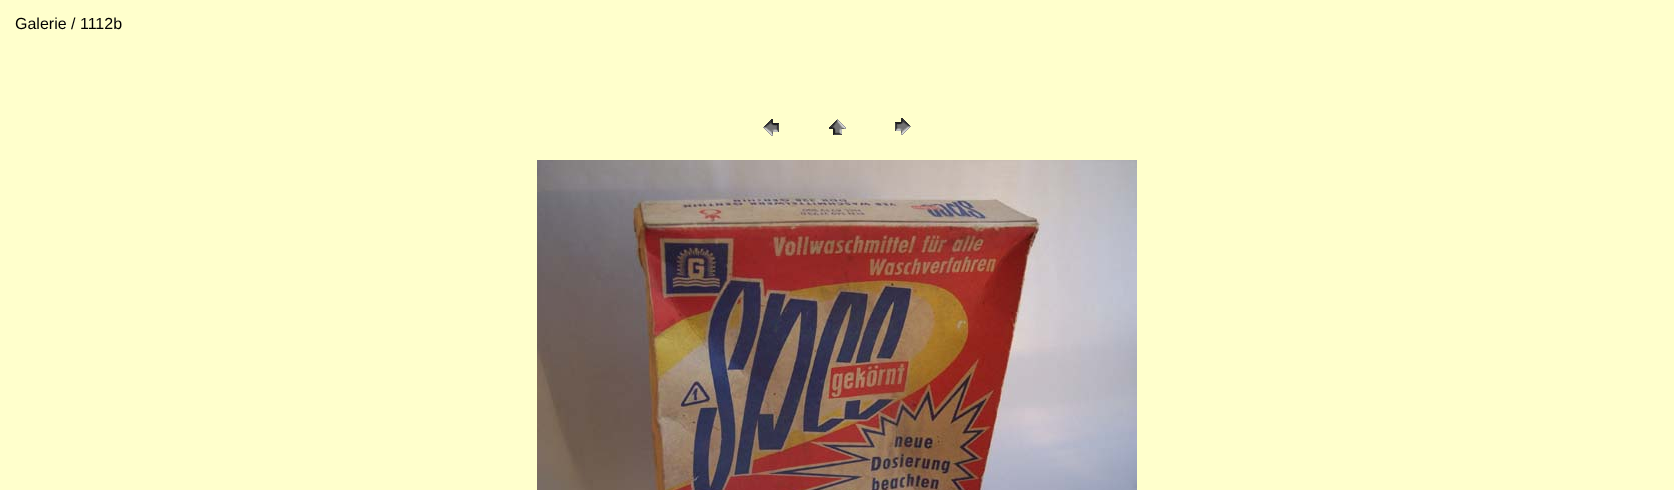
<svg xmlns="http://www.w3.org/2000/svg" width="1674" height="490">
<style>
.a{font:16px Liberation Sans;fill:#000}
</style>
<rect width="100%" height="100%" fill="#ffc"/>
<image href="1.png" x="763" y="119" width="16" height="17"/>
<image href="2.png" x="829" y="119" width="17" height="16"/>
<image href="3.png" x="895" y="118" width="16" height="17"/>
<image href="4.png" x="537" y="160" width="600" height="330"/>
<text class="a" x="15" y="29">Galerie / 1112b</text>
</svg>
